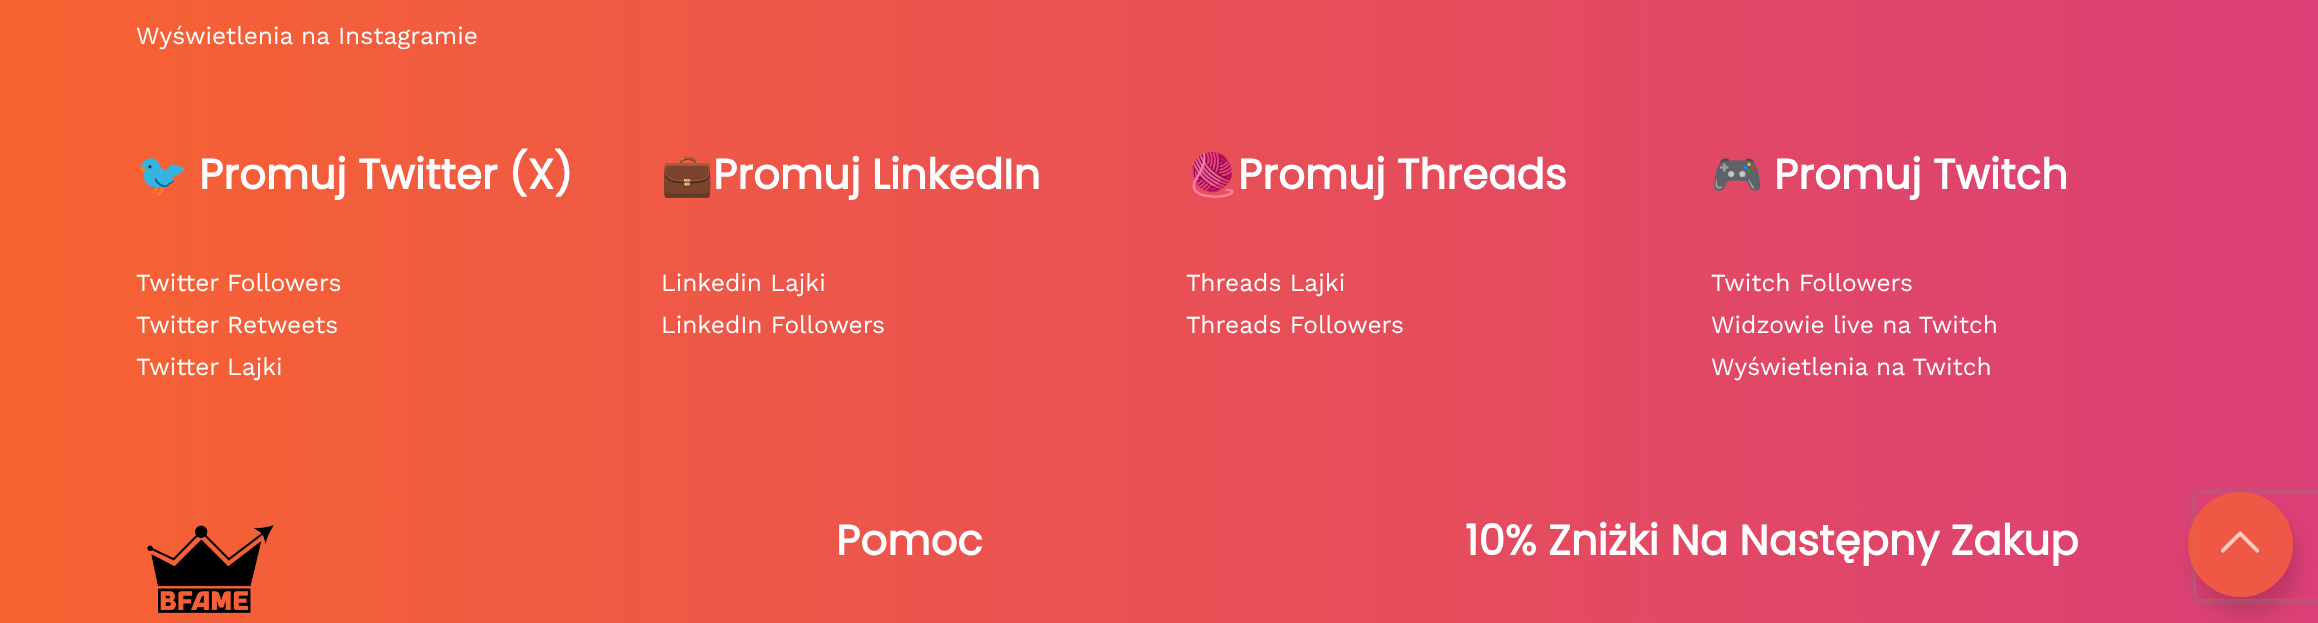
<svg xmlns="http://www.w3.org/2000/svg" width="2318" height="623">
<style>
.a{font:24.5px Work Sans;fill:#fff}
.b{font:bold 42px Noto Color Emoji;fill:#fff}
.c{font:bold 42px Poppins;fill:#fff}
</style>
<defs>
<linearGradient id="g1" gradientUnits="userSpaceOnUse" x1="0" y1="-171" x2="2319" y2="-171"><stop offset="0" stop-color="#f76331"/><stop offset="1" stop-color="#da3f77"/></linearGradient>
<linearGradient id="g2" gradientUnits="userSpaceOnUse" x1="0" y1="283" x2="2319" y2="283"><stop offset="0" stop-color="#f76331"/><stop offset="1" stop-color="#da3f77"/></linearGradient>
<linearGradient id="g3" gradientUnits="userSpaceOnUse" x1="0" y1="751" x2="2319" y2="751"><stop offset="0" stop-color="#f76331"/><stop offset="1" stop-color="#da3f77"/></linearGradient>
<clipPath id="clip1"><path d="M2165 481h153v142h-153zm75.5 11c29 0 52.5 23.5 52.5 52.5c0 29-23.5 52.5-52.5 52.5c-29 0-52.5-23.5-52.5-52.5c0-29 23.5-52.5 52.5-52.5z" clip-rule="evenodd"/></clipPath>
<clipPath id="clip2"><path d="M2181 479h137v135h-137zm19 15h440c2 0 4 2 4 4v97c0 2-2 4-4 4h-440c-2 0-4-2-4-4v-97c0-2 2-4 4-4z" clip-rule="evenodd"/></clipPath>
</defs>
<rect width="100%" height="100%" fill="#fff"/>
<path fill="url(#g1)" d="M0 0h2318v100H0z"/>
<path fill="url(#g2)" d="M0 100h2318v366H0z"/>
<path fill="url(#g3)" d="M0 466h2318v157H0z"/>
<image href="1.png" x="147" y="525" width="127" height="88"/>
<g clip-path="url(#clip1)">
<rect fill="#00000024" filter="blur(9px)" x="2193" y="509" width="105" height="105" rx="52.5"/>
</g>
<g clip-path="url(#clip2)">
<rect fill="#808080" filter="blur(4.5px)" x="2196" y="494" width="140" height="105" rx="4"/>
</g>
<circle fill="#f76331b3" cx="2240.5" cy="544.5" r="52.5"/>
<image href="2.png" x="2220" y="531" width="40" height="22"/>
<text class="a" x="136" y="44">Wyświetlenia na Instagramie</text>
<text class="b" x="136" y="189">🐦</text>
<text class="c" x="199" y="189">Promuj Twitter (X)</text>
<text class="a" x="136" y="291">Twitter Followers</text>
<text class="a" x="136" y="333">Twitter Retweets</text>
<text class="a" x="136" y="375">Twitter Lajki</text>
<text class="b" x="661" y="189">💼</text>
<text class="c" x="713" y="189">Promuj LinkedIn</text>
<text class="a" x="661" y="291">Linkedin Lajki</text>
<text class="a" x="661" y="333">LinkedIn Followers</text>
<text class="b" x="1186" y="189">🧶</text>
<text class="c" x="1238" y="189">Promuj Threads</text>
<text class="a" x="1186" y="291">Threads Lajki</text>
<text class="a" x="1186" y="333">Threads Followers</text>
<text class="b" x="1711" y="189">🎮</text>
<text class="c" x="1774" y="189">Promuj Twitch</text>
<text class="a" x="1711" y="291">Twitch Followers</text>
<text class="a" x="1711" y="333">Widzowie live na Twitch</text>
<text class="a" x="1711" y="375">Wyświetlenia na Twitch</text>
<text class="c" x="836" y="555">Pomoc</text>
<text class="c" x="1465" y="555">10% Zniżki Na Następny Zakup</text>
</svg>
